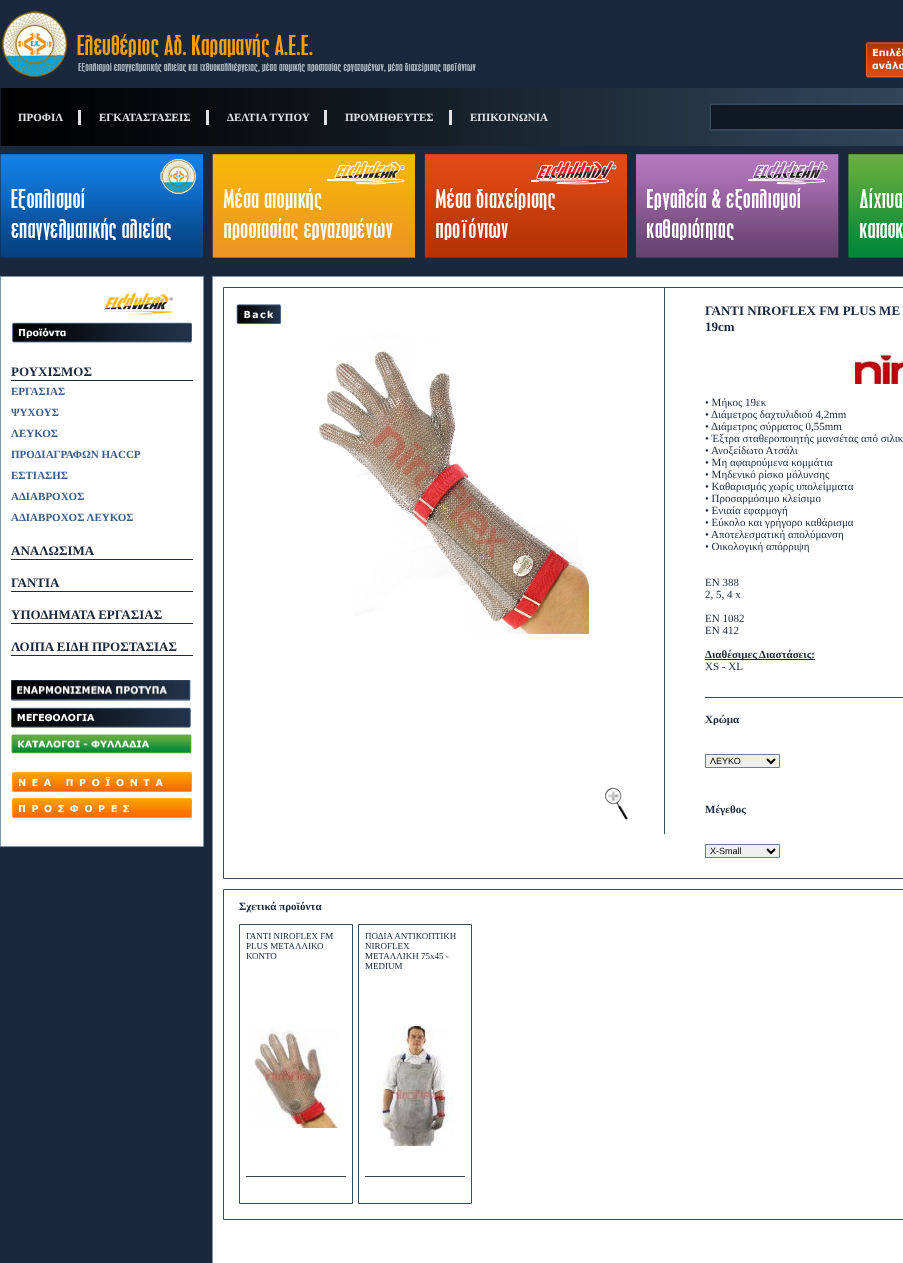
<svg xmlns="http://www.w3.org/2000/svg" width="903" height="1263">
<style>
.a{font:bold 11px Liberation Serif;fill:#e0e2e5}
.b{font:bold 13px Liberation Serif;fill:#19283c}
.c{font:bold 11px Liberation Serif;fill:#395d8e}
.d{font:11px Liberation Serif;fill:#19283c}
.e{font:bold 11px Liberation Serif;fill:#19283c}
.f{font:9px Liberation Sans;fill:#000}
.g{font:9px Liberation Serif;fill:#19283c}
</style>
<defs>
<clipPath id="clip1"><path d="M705 713h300v12H705z"/></clipPath>
</defs>
<rect width="100%" height="100%" fill="#19283c"/>
<image href="1.png" x="1" y="11" width="475" height="66"/>
<image href="2.png" x="866" y="42" width="37" height="36"/>
<image href="3.png" x="0" y="88" width="903" height="58"/>
<path fill="#e1e2e6" d="M78 110h3v15H78z"/>
<path fill="#e1e2e6" d="M206 110h3v15H206z"/>
<path fill="#e1e2e6" d="M324 110h3v15H324z"/>
<path fill="#e1e2e6" d="M449 110h3v15H449z"/>
<image href="4.png" x="710" y="103" width="193" height="28"/>
<image href="5.png" x="0" y="154" width="203" height="104"/>
<image href="6.png" x="11" y="188" width="160" height="52"/>
<image href="7.png" x="212" y="154" width="203" height="104"/>
<image href="8.png" x="223" y="188" width="170" height="52"/>
<image href="9.png" x="424" y="154" width="203" height="104"/>
<image href="10.png" x="435" y="188" width="120" height="52"/>
<image href="11.png" x="636" y="154" width="203" height="104"/>
<image href="12.png" x="647" y="188" width="154" height="52"/>
<image href="13.png" x="848" y="154" width="55" height="104"/>
<image href="14.png" x="859" y="188" width="44" height="50"/>
<path fill="#fff" stroke="#7d96ae" d="M0.5 276.5h203v570H0.5z"/>
<image href="15.png" x="97" y="293" width="76" height="22"/>
<image href="16.png" x="12" y="322" width="180" height="21"/>
<path fill="#1e2c40" d="M11 380h182v1H11z"/>
<path fill="#1e2c40" d="M11 559h182v1H11z"/>
<path fill="#1e2c40" d="M11 591h182v1H11z"/>
<path fill="#1e2c40" d="M11 623h182v1H11z"/>
<path fill="#1e2c40" d="M11 655h182v1H11z"/>
<image href="17.png" x="11" y="680" width="181" height="21"/>
<image href="18.png" x="11" y="707" width="180" height="21"/>
<image href="19.png" x="11" y="734" width="181" height="20"/>
<image href="20.png" x="12" y="772" width="180" height="20"/>
<image href="21.png" x="12" y="798" width="180" height="20"/>
<path fill="#fff" stroke="#7d96ae" d="M212.5 276.5h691v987H212.5z"/>
<path fill="none" stroke="#344c62" d="M223.5 287.5h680v591H223.5z"/>
<path fill="#344c62" d="M664 288h1v546H664z"/>
<image href="22.png" x="236" y="304" width="45" height="20"/>
<image href="23.png" x="318" y="335" width="271" height="299"/>
<image href="24.png" x="605" y="787" width="23" height="33"/>
<image href="25.png" x="855" y="355" width="48" height="29"/>
<path fill="#344c62" d="M705 697h198v1H705z"/>
<path fill="#19283c" d="M705 659h110v1H705z"/>
<path fill="#efefef" stroke="#6b7e99" d="M705.5 754.5h74v13H705.5z"/>
<path fill="none" stroke="#000" stroke-width="2" d="M767 759l4 4l4-4"/>
<path fill="#efefef" stroke="#6b7e99" d="M705.5 844.5h74v13H705.5z"/>
<path fill="none" stroke="#000" stroke-width="2" d="M767 849l4 4l4-4"/>
<path fill="none" stroke="#344c62" d="M223.5 889.5h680v330H223.5z"/>
<path fill="none" stroke="#344c62" d="M239.5 924.5h113v279H239.5z"/>
<image href="26.png" x="252" y="1026" width="90" height="102"/>
<path fill="#40464e" d="M246 1176h100v1H246z"/>
<path fill="none" stroke="#344c62" d="M358.5 924.5h113v279H358.5z"/>
<image href="27.png" x="377" y="1026" width="77" height="120"/>
<path fill="#40464e" d="M365 1176h100v1H365z"/>
<text class="a" x="18" y="121">ΠΡΟΦΙΛ</text>
<text class="a" x="99" y="121">ΕΓΚΑΤΑΣΤΑΣΕΙΣ</text>
<text class="a" x="227" y="121">ΔΕΛΤΙΑ ΤΥΠΟΥ</text>
<text class="a" x="345" y="121">ΠΡΟΜΗΘΕΥΤΕΣ</text>
<text class="a" x="470" y="121">ΕΠΙΚΟΙΝΩΝΙΑ</text>
<text class="b" x="11" y="376">ΡΟΥΧΙΣΜΟΣ</text>
<text class="c" x="11" y="395">ΕΡΓΑΣΙΑΣ</text>
<text class="c" x="11" y="416">ΨΥΧΟΥΣ</text>
<text class="c" x="11" y="437">ΛΕΥΚΟΣ</text>
<text class="c" x="11" y="458">ΠΡΟΔΙΑΓΡΑΦΩΝ HACCP</text>
<text class="c" x="11" y="479">ΕΣΤΙΑΣΗΣ</text>
<text class="c" x="11" y="500">ΑΔΙΑΒΡΟΧΟΣ</text>
<text class="c" x="11" y="521">ΑΔΙΑΒΡΟΧΟΣ ΛΕΥΚΟΣ</text>
<text class="b" x="11" y="555">ΑΝΑΛΩΣΙΜΑ</text>
<text class="b" x="11" y="587">ΓΑΝΤΙA</text>
<text class="b" x="11" y="619">ΥΠΟΔΗΜΑΤΑ ΕΡΓΑΣΙΑΣ</text>
<text class="b" x="11" y="651">ΛΟΙΠΑ ΕΙΔΗ ΠΡΟΣΤΑΣΙΑΣ</text>
<text class="b" x="705" y="315">ΓΑΝΤΙ NIROFLEX FM PLUS ΜΕ</text>
<text class="b" x="705" y="331">19cm</text>
<text class="d" x="705" y="406">• Μήκος 19εκ</text>
<text class="d" x="705" y="418">• Διάμετρος δαχτυλιδιού 4,2mm</text>
<text class="d" x="705" y="430">• Διάμετρος σύρματος 0,55mm</text>
<text class="d" x="705" y="442">• Έξτρα σταθεροποιητής μανσέτας από σιλικ</text>
<text class="d" x="705" y="454">• Ανοξείδωτο Ατσάλι</text>
<text class="d" x="705" y="466">• Μη αφαιρούμενα κομμάτια</text>
<text class="d" x="705" y="478">• Μηδενικό ρίσκο μόλυνσης</text>
<text class="d" x="705" y="490">• Καθαρισμός χωρίς υπολείμματα</text>
<text class="d" x="705" y="502">• Προσαρμόσιμο κλείσιμο</text>
<text class="d" x="705" y="514">• Ενιαία εφαρμογή</text>
<text class="d" x="705" y="526">• Εύκολο και γρήγορο καθάρισμα</text>
<text class="d" x="705" y="538">• Αποτελεσματική απολύμανση</text>
<text class="d" x="705" y="550">• Οικολογική απόρριψη</text>
<text class="d" x="705" y="586">EN 388</text>
<text class="d" x="705" y="598">2, 5, 4 x</text>
<text class="d" x="705" y="622">EN 1082</text>
<text class="d" x="705" y="634">EN 412</text>
<text class="e" x="705" y="658">Διαθέσιμες Διαστάσεις:</text>
<text class="d" x="705" y="670">XS - XL</text>
<g clip-path="url(#clip1)">
<text class="e" x="705" y="723">Χρώμα</text>
</g>
<text class="f" x="710" y="764">ΛΕΥΚΟ</text>
<text class="e" x="705" y="813">Μέγεθος</text>
<text class="f" x="710" y="854">X-Small</text>
<text class="e" x="239" y="910">Σχετικά προϊόντα</text>
<text class="g" x="246" y="939">ΓΑΝΤΙ NIROFLEX FM</text>
<text class="g" x="246" y="949">PLUS ΜΕΤΑΛΛΙΚΟ</text>
<text class="g" x="246" y="959">ΚΟΝΤΟ</text>
<text class="g" x="365" y="939">ΠΟΔΙΑ ΑΝΤΙΚΟΠΤΙΚΗ</text>
<text class="g" x="365" y="949">NIROFLEX</text>
<text class="g" x="365" y="959">ΜΕΤΑΛΛΙΚΗ 75x45 -</text>
<text class="g" x="365" y="969">MEDIUM</text>
</svg>
